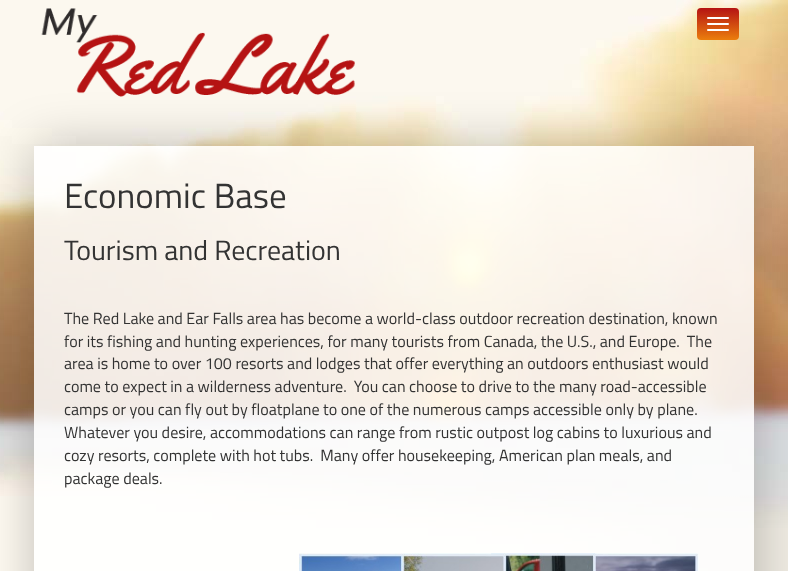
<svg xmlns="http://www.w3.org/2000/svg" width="788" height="571">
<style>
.a{font:35px Titillium Web;fill:#333}
.b{font:28px Titillium Web;fill:#333}
.c{font:16.1px Titillium Web;fill:#333}
</style>
<defs>
<linearGradient id="g1" gradientUnits="userSpaceOnUse" x1="718" y1="8" x2="718" y2="40"><stop offset="0" stop-color="#b51313"/><stop offset="1" stop-color="#eb7e0d"/></linearGradient>
<clipPath id="clip1"><path d="M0 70h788v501h-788zm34 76h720v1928h-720z" clip-rule="evenodd"/></clipPath>
</defs>
<rect width="100%" height="100%" fill="#fff"/>
<image href="1.png" x="0" y="0" width="788" height="571"/>
<image href="2.png" x="41" y="8" width="314" height="89"/>
<rect fill="url(#g1)" x="697" y="8" width="42" height="32" rx="4"/>
<rect fill="#fff" x="707" y="17" width="22" height="2" rx="1"/>
<rect fill="#fff" x="707" y="23" width="22" height="2" rx="1"/>
<rect fill="#fff" x="707" y="29" width="22" height="2" rx="1"/>
<g clip-path="url(#clip1)">
<path fill="#00000040" filter="blur(25px)" d="M34 146h720v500H34z"/>
</g>
<path fill="#ffffffd9" d="M34 146h720v425H34z"/>
<image href="3.png" x="299" y="553" width="400" height="18"/>
<text class="a" x="64" y="208">Economic Base</text>
<text class="b" x="64" y="260">Tourism and Recreation</text>
<text class="c" x="64" y="324">The Red Lake and Ear Falls area has become a world-class outdoor recreation destination, known</text>
<text class="c" xml:space="preserve" x="64" y="347">for its fishing and hunting experiences, for many tourists from Canada, the U.S., and Europe.  The</text>
<text class="c" x="64" y="369">area is home to over 100 resorts and lodges that offer everything an outdoors enthusiast would</text>
<text class="c" xml:space="preserve" x="64" y="392">come to expect in a wilderness adventure.  You can choose to drive to the many road-accessible</text>
<text class="c" x="64" y="415">camps or you can fly out by floatplane to one of the numerous camps accessible only by plane.</text>
<text class="c" x="64" y="438">Whatever you desire, accommodations can range from rustic outpost log cabins to luxurious and</text>
<text class="c" xml:space="preserve" x="64" y="461">cozy resorts, complete with hot tubs.  Many offer housekeeping, American plan meals, and</text>
<text class="c" x="64" y="484">package deals.</text>
</svg>
